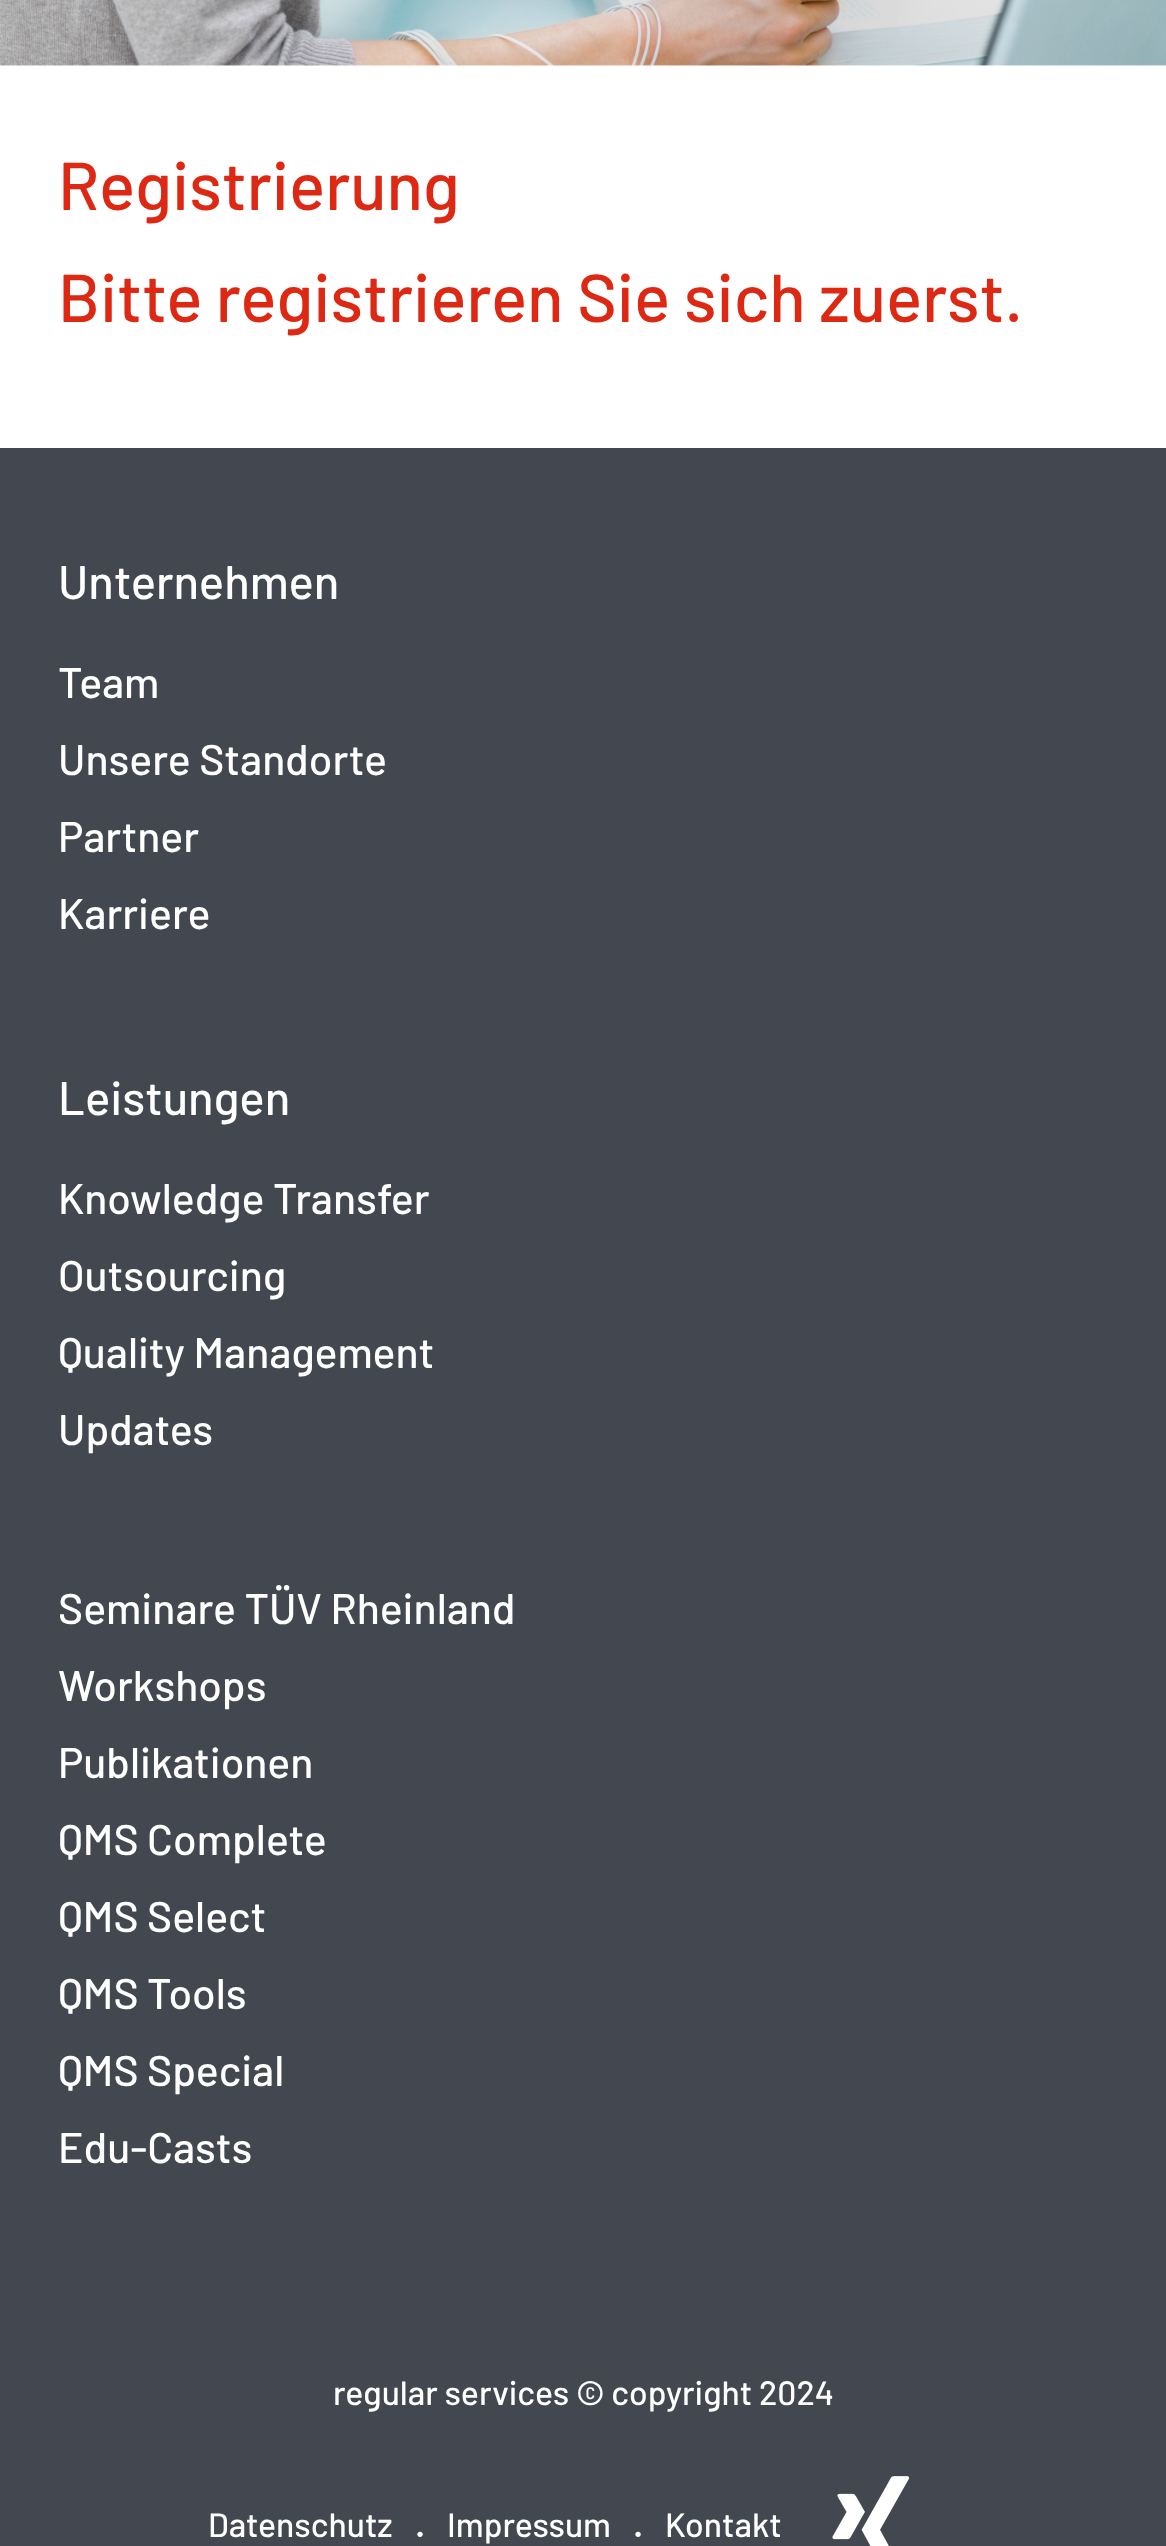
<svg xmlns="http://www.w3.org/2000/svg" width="1166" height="2546">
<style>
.a{font:500 67.5px Barlow;fill:#dd2814}
.b{font:500 47.25px Barlow;fill:#fff}
.c{font:500 42.75px Barlow;fill:#fff}
.d{font:500 33.75px Barlow;fill:#fff}
.e{font:bold 33.75px Barlow;fill:#fff}
</style>
<rect width="100%" height="100%" fill="#fff"/>
<image href="1.png" x="0" y="0" width="1166" height="66"/>
<path fill="#434750" d="M0 448h1166v2098H0z"/>
<image href="2.png" x="832" y="2476" width="77" height="70"/>
<text class="a" x="58" y="210">Registrierung</text>
<text class="a" x="58" y="322">Bitte registrieren Sie sich zuerst.</text>
<text class="b" x="58" y="599">Unternehmen</text>
<text class="c" x="58" y="698">Team</text>
<text class="c" x="58" y="775">Unsere Standorte</text>
<text class="c" x="58" y="852">Partner</text>
<text class="c" x="58" y="929">Karriere</text>
<text class="b" x="58" y="1115">Leistungen</text>
<text class="c" x="58" y="1214">Knowledge Transfer</text>
<text class="c" x="58" y="1291">Outsourcing</text>
<text class="c" x="58" y="1368">Quality Management</text>
<text class="c" x="58" y="1445">Updates</text>
<text class="c" x="58" y="1624">Seminare TÜV Rheinland</text>
<text class="c" x="58" y="1701">Workshops</text>
<text class="c" x="58" y="1778">Publikationen</text>
<text class="c" x="58" y="1855">QMS Complete</text>
<text class="c" x="58" y="1932">QMS Select</text>
<text class="c" x="58" y="2009">QMS Tools</text>
<text class="c" x="58" y="2086">QMS Special</text>
<text class="c" x="58" y="2163">Edu-Casts</text>
<text class="d" x="333" y="2405">regular services © copyright 2024</text>
<text class="d" x="208" y="2537">Datenschutz</text>
<text class="e" x="415" y="2537">.</text>
<text class="d" x="447" y="2537">Impressum</text>
<text class="e" x="633" y="2537">.</text>
<text class="d" x="665" y="2537">Kontakt</text>
</svg>
